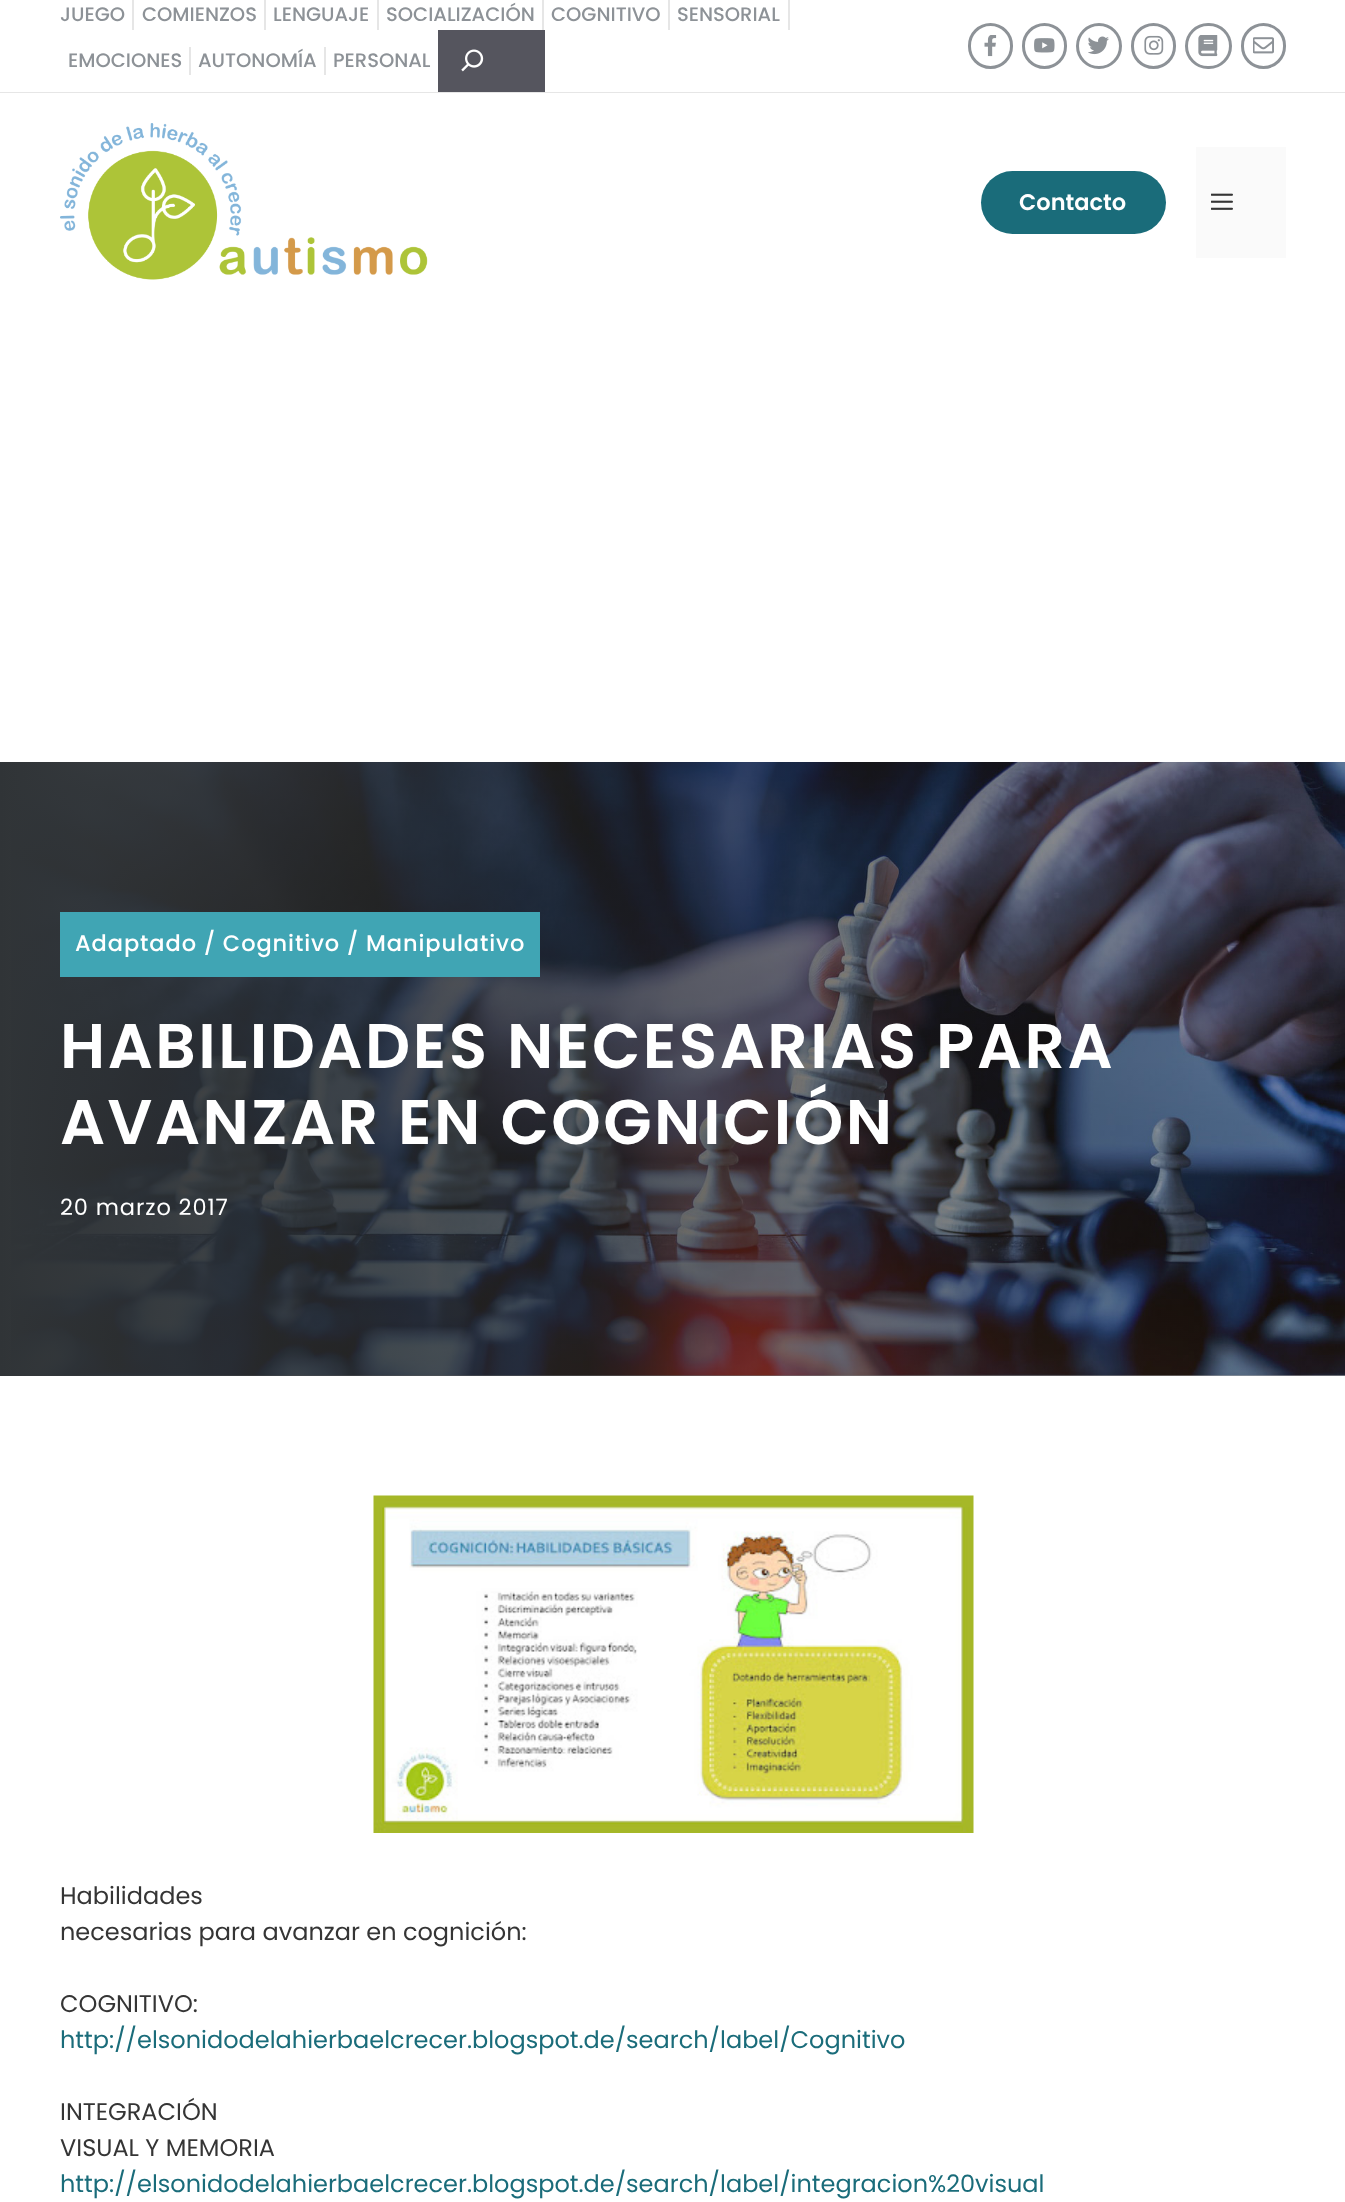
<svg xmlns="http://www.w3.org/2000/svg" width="1345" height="2202">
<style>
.a{font:500 19.5px Poppins;fill:#8d9297}
.b{font:600 22.5px Poppins;fill:#fff}
.c{font:500 22.5px Poppins;letter-spacing:0.9px;fill:#fff}
.d{font:600 63px Poppins;letter-spacing:2.5px;fill:#fff}
.e{font:22.5px Poppins;letter-spacing:0.9px;fill:#fff}
.f{font:24px Poppins;fill:#353535}
.g{font:24px Poppins;fill:#1a6c7a}
</style>
<defs>
<linearGradient id="g1" gradientUnits="userSpaceOnUse" x1="0" y1="1069" x2="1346" y2="1069"><stop offset="0" stop-color="#303437"/><stop offset="1" stop-color="#000" stop-opacity="0.3"/></linearGradient>
</defs>
<rect width="100%" height="100%" fill="#fff"/>
<path fill="#e6e6e6" d="M0 92h1345v1H0z"/>
<path fill="#e6e6e6" d="M132 0h2v30H132z"/>
<path fill="#e6e6e6" d="M264 0h2v30H264z"/>
<path fill="#e6e6e6" d="M377 0h2v30H377z"/>
<path fill="#e6e6e6" d="M542 0h2v30H542z"/>
<path fill="#e6e6e6" d="M668 0h2v30H668z"/>
<path fill="#e6e6e6" d="M788 0h2v30H788z"/>
<path fill="#e6e6e6" d="M189 47h2v28H189z"/>
<path fill="#e6e6e6" d="M324 47h2v28H324z"/>
<path fill="#55555e" d="M438 30h107v62H438z"/>
<image href="1.png" x="461" y="49" width="23" height="23"/>
<rect fill="none" stroke="#8d9297" stroke-width="3" x="969.5" y="24.5" width="42" height="43" rx="21"/>
<image href="2.png" x="984" y="35" width="13" height="22"/>
<rect fill="none" stroke="#8d9297" stroke-width="3" x="1023.5" y="24.5" width="42" height="43" rx="21"/>
<image href="3.png" x="1034" y="38" width="21" height="15"/>
<circle fill="none" stroke="#8d9297" stroke-width="3" cx="1099" cy="46" r="21.5"/>
<image href="4.png" x="1088" y="36" width="21" height="19"/>
<rect fill="none" stroke="#8d9297" stroke-width="3" x="1132.5" y="24.5" width="42" height="43" rx="21"/>
<image href="5.png" x="1144" y="35" width="20" height="20"/>
<rect fill="none" stroke="#8d9297" stroke-width="3" x="1186.5" y="24.5" width="44" height="43" rx="21.5"/>
<image href="6.png" x="1198" y="35" width="20" height="22"/>
<rect fill="none" stroke="#8d9297" stroke-width="3" x="1242.5" y="24.5" width="42" height="43" rx="21"/>
<image href="7.png" x="1253" y="37" width="21" height="17"/>
<image href="8.png" x="60" y="123" width="368" height="157"/>
<rect fill="#1a6c7a" x="981" y="171" width="185" height="63" rx="31.5"/>
<path fill="#fafafa" d="M1196 147h90v111H1196z"/>
<image href="9.png" x="1211" y="193" width="22" height="17"/>
<image href="10.png" x="11" y="762" width="1334" height="614"/>
<path fill="url(#g1)" d="M0 762h1345v614H0z"/>
<path fill="#40a5b4" d="M60 912h480v65H60z"/>
<image href="11.png" x="373" y="1495" width="601" height="338"/>
<text class="a" x="60" y="21">JUEGO</text>
<text class="a" x="142" y="21">COMIENZOS</text>
<text class="a" x="273" y="21">LENGUAJE</text>
<text class="a" x="386" y="21">SOCIALIZACIÓN</text>
<text class="a" x="551" y="21">COGNITIVO</text>
<text class="a" x="677" y="21">SENSORIAL</text>
<text class="a" x="68" y="67">EMOCIONES</text>
<text class="a" x="198" y="67">AUTONOMÍA</text>
<text class="a" x="333" y="67">PERSONAL</text>
<text class="b" x="1019" y="210">Contacto</text>
<text class="c" x="75" y="951">Adaptado / Cognitivo / Manipulativo</text>
<text class="d" x="60" y="1068">HABILIDADES NECESARIAS PARA</text>
<text class="d" x="60" y="1144">AVANZAR EN COGNICIÓN</text>
<text class="e" x="60" y="1215">20 marzo 2017</text>
<text class="f" x="60" y="1904">Habilidades</text>
<text class="f" x="60" y="1940">necesarias para avanzar en cognición:</text>
<text class="f" x="60" y="2012">COGNITIVO:</text>
<text class="g" x="60" y="2048">http://elsonidodelahierbaelcrecer.blogspot.de/search/label/Cognitivo</text>
<text class="f" x="60" y="2120">INTEGRACIÓN</text>
<text class="f" x="60" y="2156">VISUAL Y MEMORIA</text>
<text class="g" x="60" y="2192">http://elsonidodelahierbaelcrecer.blogspot.de/search/label/integracion%20visual</text>
</svg>
